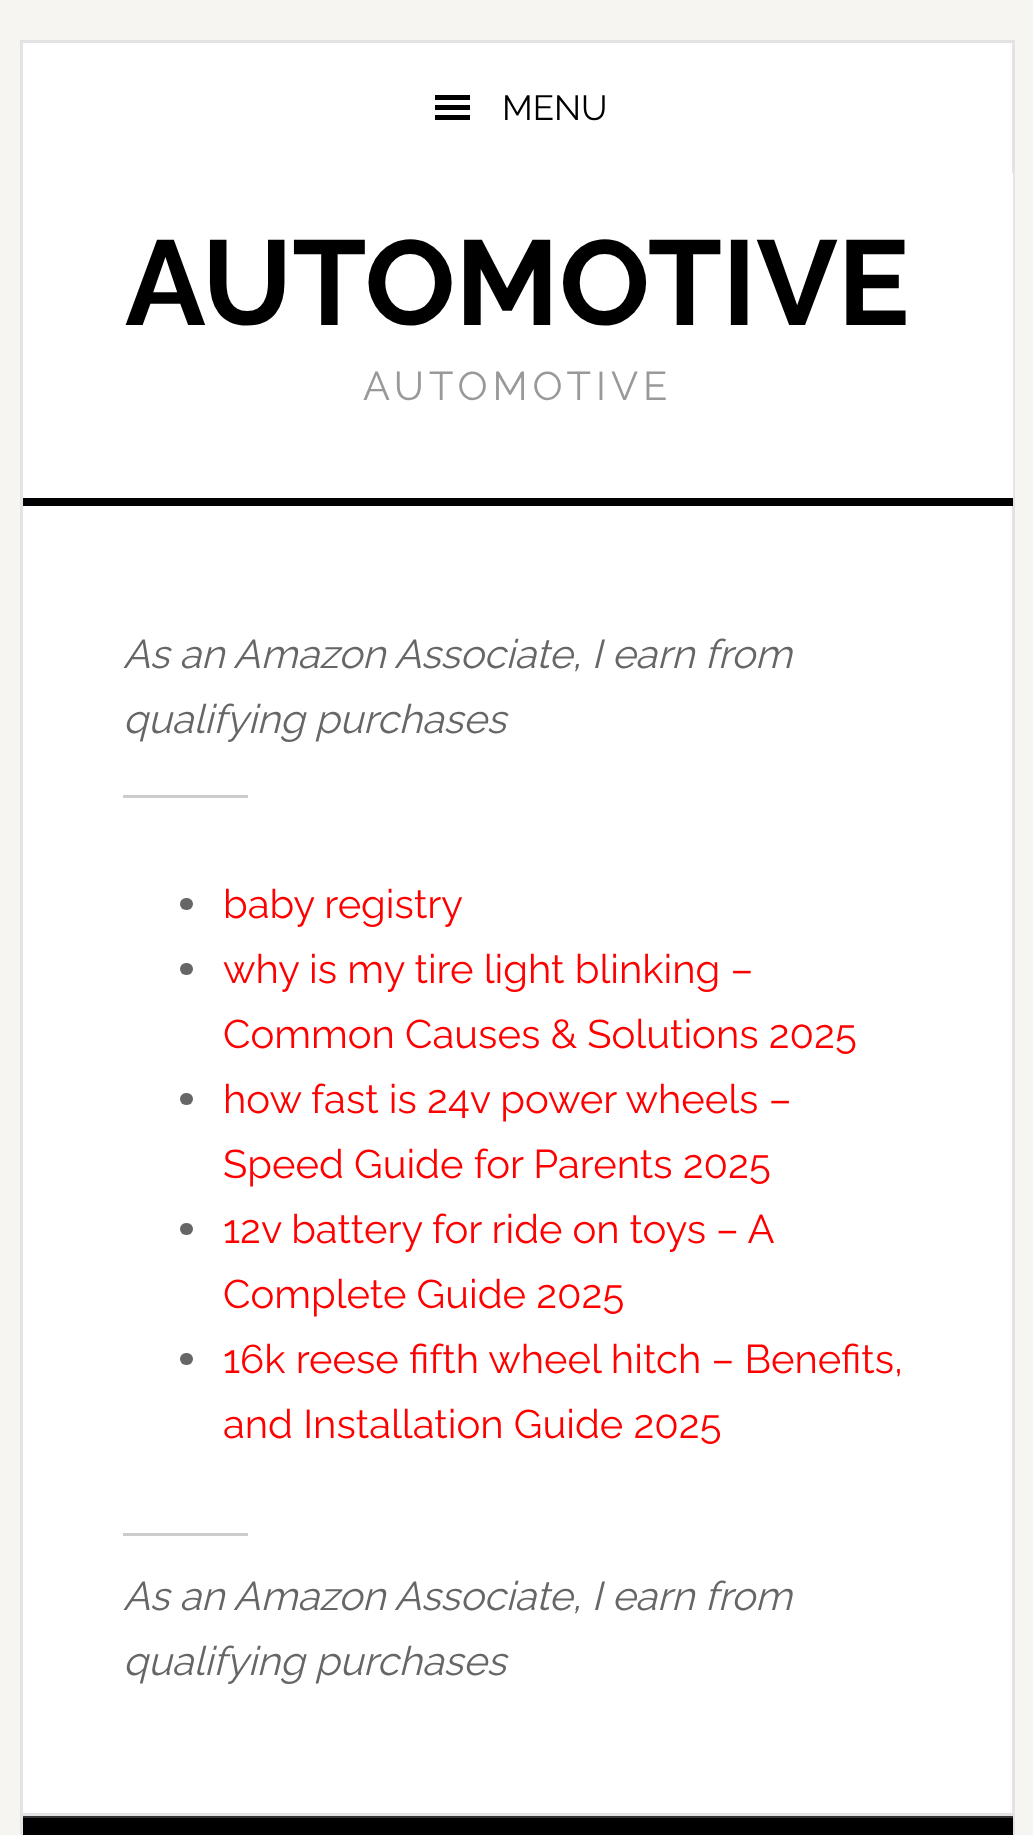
<svg xmlns="http://www.w3.org/2000/svg" width="1033" height="1835">
<style>
.a{font:35px Raleway;fill:#000}
.b{font:bold 120px Raleway;fill:#000}
.c{font:40px Raleway;letter-spacing:5px;fill:#999}
.d{font:italic 40px Raleway;fill:#666}
.e{font:40px Raleway;fill:#f00}
</style>
<rect width="100%" height="100%" fill="#f6f5f2"/>
<path fill="#fff" d="M23 43h989v1770H23z"/>
<path fill="none" stroke="#e3e3e3" stroke-width="3" d="M21.5 41.5h992v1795H21.5z"/>
<path fill="#000" d="M435 120h35v-5h-35zm0-25v5h35v-5zm0 15h35v-5h-35z"/>
<path fill="#fff" d="M1012 173h1v325H1012z"/>
<path fill="#000" d="M23 498h990v8H23z"/>
<path fill="#e3e3e3" d="M23 1813h990v3H23z"/>
<path fill="#ccc" d="M123 795h125v3H123z"/>
<rect fill="#666" x="180" y="898" width="13" height="12" rx="6"/>
<rect fill="#666" x="180" y="963" width="13" height="12" rx="6"/>
<rect fill="#666" x="180" y="1093" width="13" height="12" rx="6"/>
<rect fill="#666" x="180" y="1223" width="13" height="12" rx="6"/>
<rect fill="#666" x="180" y="1353" width="13" height="12" rx="6"/>
<path fill="#ccc" d="M123 1533h125v3H123z"/>
<path fill="#000" d="M23 1818h990v17H23z"/>
<path fill="#333" d="M23 1816h990v2H23z"/>
<text class="a" x="502" y="120">MENU</text>
<text class="b" x="125" y="325">AUTOMOTIVE</text>
<text class="c" x="363" y="400">AUTOMOTIVE</text>
<text class="d" x="123" y="668">As an Amazon Associate, I earn from</text>
<text class="d" x="123" y="733">qualifying purchases</text>
<text class="e" x="223" y="918">baby registry</text>
<text class="e" x="223" y="983">why is my tire light blinking –</text>
<text class="e" x="223" y="1048">Common Causes &amp; Solutions 2025</text>
<text class="e" x="223" y="1113">how fast is 24v power wheels –</text>
<text class="e" x="223" y="1178">Speed Guide for Parents 2025</text>
<text class="e" x="223" y="1243" word-spacing="-0.25">12v battery for ride on toys – A</text>
<text class="e" x="223" y="1308">Complete Guide 2025</text>
<text class="e" x="223" y="1373">16k reese fifth wheel hitch – Benefits,</text>
<text class="e" x="223" y="1438">and Installation Guide 2025</text>
<text class="d" x="123" y="1610">As an Amazon Associate, I earn from</text>
<text class="d" x="123" y="1675">qualifying purchases</text>
</svg>
